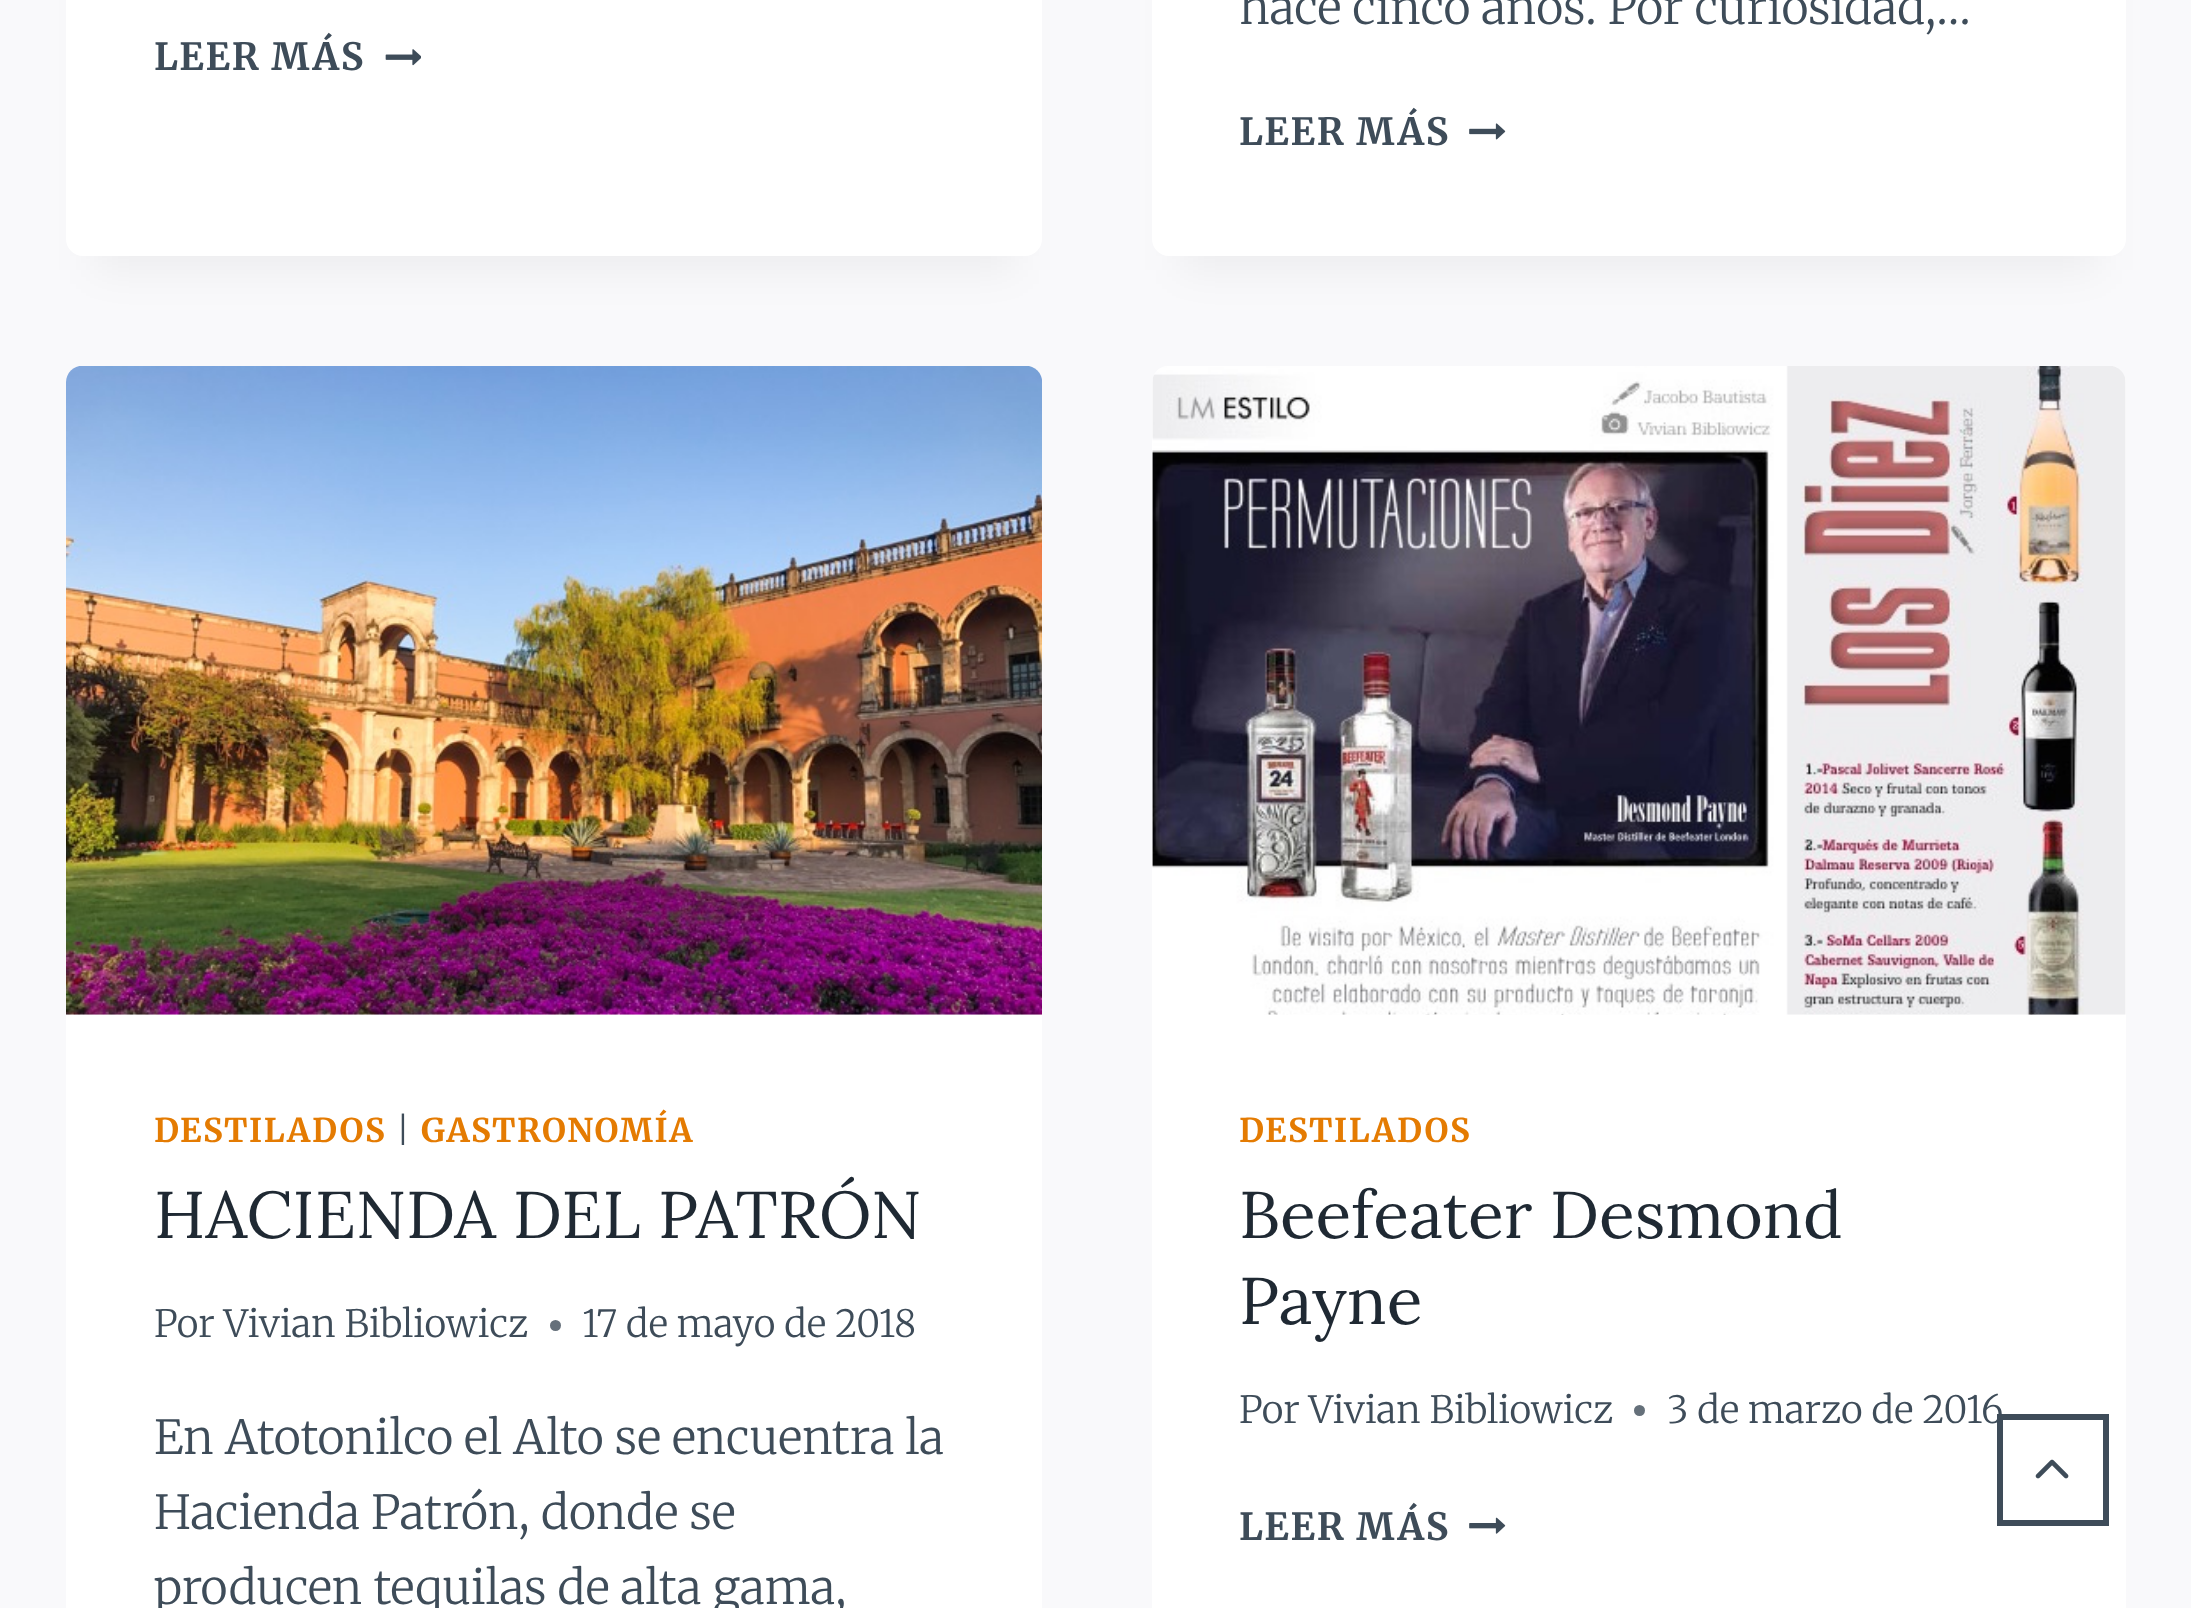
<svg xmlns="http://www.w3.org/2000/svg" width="2191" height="1608">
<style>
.a{font:bold 37.5px Merriweather;letter-spacing:1.75px;fill:#3e4c59}
.b{font:300 46.75px Merriweather;fill:#3e4c59}
.c{font:bold 32.75px Merriweather;letter-spacing:1.6px;fill:#e47b02}
.d{font:300 32.75px Merriweather;letter-spacing:1.6px;fill:#3e4c59}
.e{font:66px Lora;fill:#1f2933}
.f{font:300 37.5px Merriweather;fill:#3e4c59}
</style>
<rect width="100%" height="100%" fill="#f9f9fb"/>
<path fill="#0000000d" filter="blur(20.5px)" d="M94 -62h921v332H94z"/>
<rect fill="#fff" x="66" y="-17" width="976" height="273" rx="17"/>
<image href="1.png" x="385" y="49" width="36" height="17"/>
<path fill="#0000000d" filter="blur(20.5px)" d="M1180 -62h918v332H1180z"/>
<rect fill="#fff" x="1152" y="-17" width="974" height="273" rx="17"/>
<image href="2.png" x="1469" y="123" width="37" height="17"/>
<rect fill="#fff" x="66" y="366" width="976" height="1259" rx="17"/>
<image href="3.png" x="66" y="366" width="976" height="649"/>
<circle fill="#65707a" cx="555.5" cy="1325.5" r="5.5"/>
<rect fill="#fff" x="1152" y="366" width="974" height="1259" rx="17"/>
<image href="4.png" x="1152" y="366" width="974" height="649"/>
<circle fill="#65707a" cx="1639.5" cy="1410.5" r="5.5"/>
<image href="5.png" x="1469" y="1517" width="37" height="17"/>
<path fill="none" stroke="#3e4c59" stroke-width="6" d="M2000 1417h106v106H2000z"/>
<image href="6.png" x="2035" y="1459" width="34" height="20"/>
<text class="a" x="154" y="70">LEER MÁS</text>
<text class="b" x="1239" y="24">hace cinco años. Por curiosidad,…</text>
<text class="a" x="1239" y="145">LEER MÁS</text>
<text class="c" x="154" y="1142">DESTILADOS</text>
<text class="d" x="396" y="1142">|</text>
<text class="c" x="421" y="1142">GASTRONOMÍA</text>
<text class="e" x="154" y="1238">HACIENDA DEL PATRÓN</text>
<text class="f" x="154" y="1337">Por Vivian Bibliowicz</text>
<text class="f" x="582" y="1337">17 de mayo de 2018</text>
<text class="b" x="154" y="1454">En Atotonilco el Alto se encuentra la</text>
<text class="b" x="154" y="1529">Hacienda Patrón, donde se</text>
<text class="b" x="154" y="1604">producen tequilas de alta gama,</text>
<text class="c" x="1239" y="1142">DESTILADOS</text>
<text class="e" x="1239" y="1238">Beefeater Desmond</text>
<text class="e" x="1239" y="1324">Payne</text>
<text class="f" x="1239" y="1423">Por Vivian Bibliowicz</text>
<text class="f" x="1667" y="1423">3 de marzo de 2016</text>
<text class="a" x="1239" y="1540">LEER MÁS</text>
</svg>
